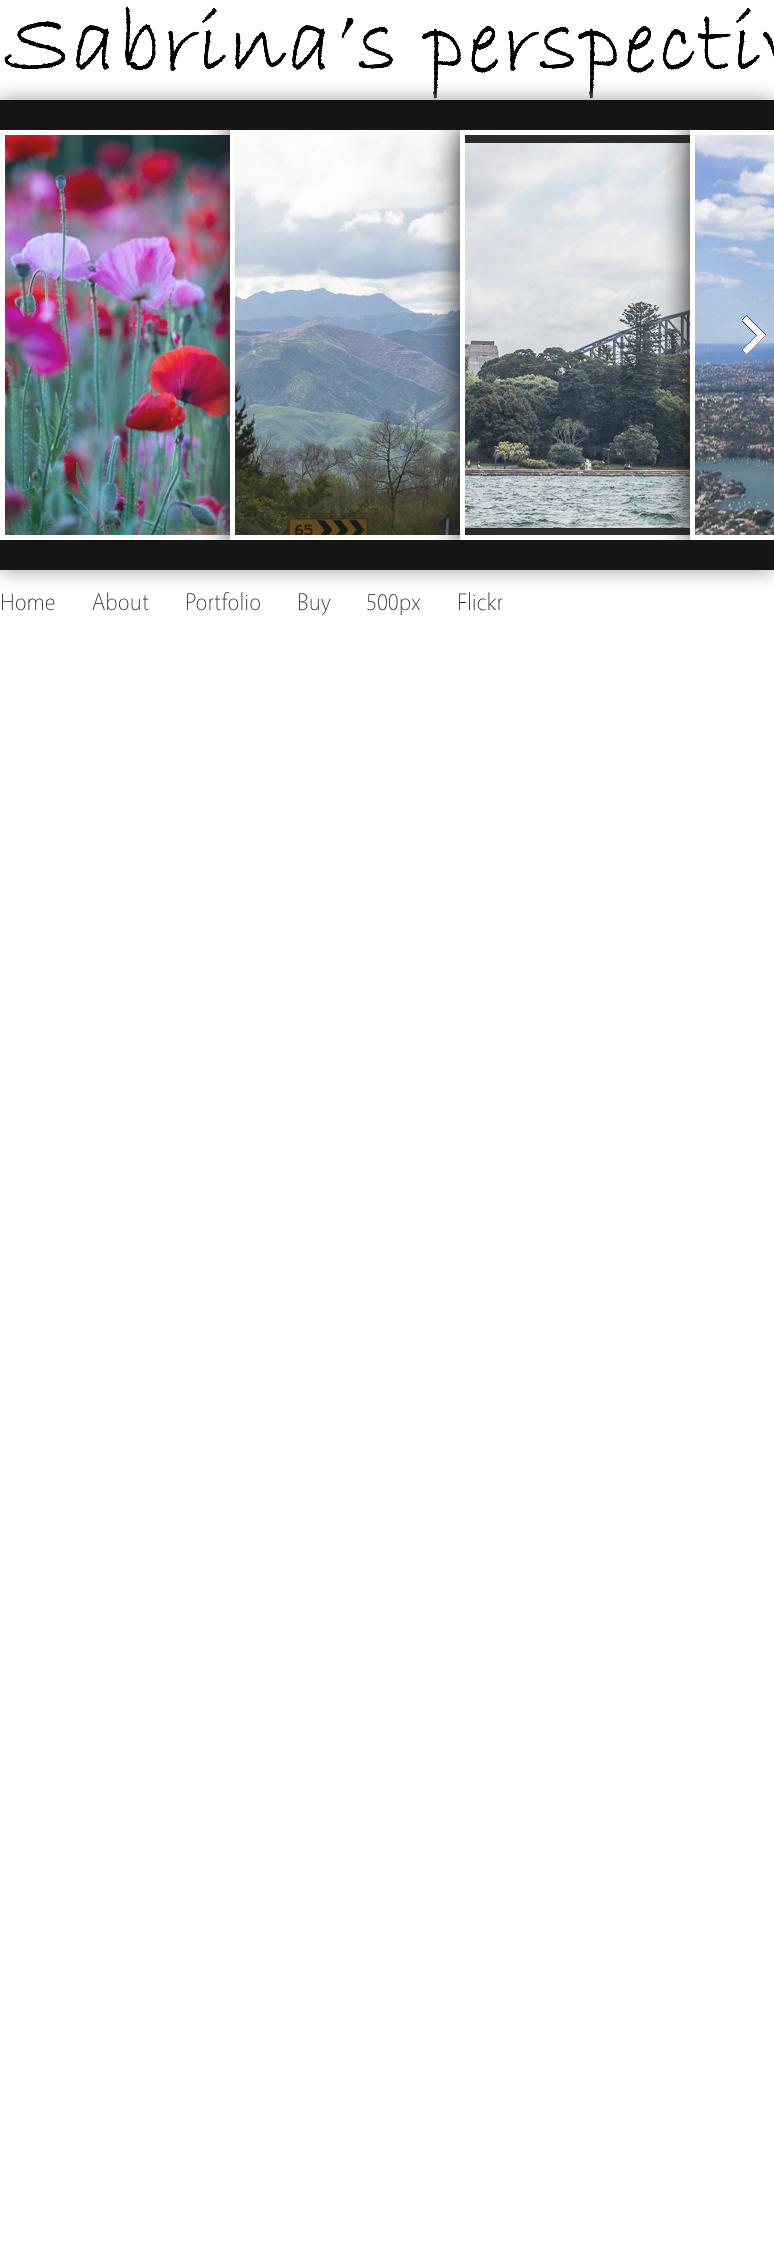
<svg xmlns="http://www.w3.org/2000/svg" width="774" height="2264">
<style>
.a{font:300 24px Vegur;fill:#252525}
</style>
<defs>
<clipPath id="clip1"><path d="M0 130h230v410H0z"/></clipPath>
<clipPath id="clip2"><path d="M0 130h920v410H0z"/></clipPath>
<clipPath id="clip3"><path d="M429 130h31v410H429z"/></clipPath>
</defs>
<rect width="100%" height="100%" fill="#fff"/>
<image href="1.png" x="4" y="6" width="770" height="93"/>
<path fill="#999" filter="blur(10px)" d="M0 100h774v470H0z"/>
<path fill="#151515" d="M0 100h774v470H0z"/>
<image href="4.png" x="5" y="135" width="225" height="400"/>
<g clip-path="url(#clip1)">
<path fill="none" stroke="#fff" stroke-width="5" d="M2.5 132.5h605v405H2.5z"/>
</g>
<g clip-path="url(#clip2)">
<path fill="#000" filter="blur(15px)" d="M230 130h230v410H230z"/>
</g>
<image href="2.png" x="235" y="135" width="225" height="400"/>
<path fill="none" stroke="#fff" stroke-width="5" d="M232.5 132.5h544v405H232.5z"/>
<g clip-path="url(#clip2)">
<g clip-path="url(#clip3)">
<path fill="#000" filter="blur(15px)" d="M460 130h230v410H460z"/>
</g>
</g>
<path fill="#ffffff1a" d="M235 135h225v400H235z"/>
<image href="3.png" x="465" y="143" width="225" height="385"/>
<path fill="none" stroke="#fff" stroke-width="5" d="M462.5 132.5h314v405H462.5z"/>
<g clip-path="url(#clip2)">
<path fill="#000" filter="blur(15px)" d="M690 130h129v410H690z"/>
</g>
<path fill="#ffffff1a" d="M465 135h225v400H465z"/>
<path fill="#ffffff1a" d="M5 135h225v400H5z"/>
<image href="5.png" x="695" y="135" width="79" height="400"/>
<path fill="none" stroke="#fff" stroke-width="5" d="M692.5 132.5h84v405H692.5z"/>
<image href="6.png" x="742" y="315" width="24" height="40"/>
<path fill="#ffffff1a" d="M695 135h79v400H695z"/>
<text class="a" x="0" y="610">Home</text>
<text class="a" x="92" y="610">About</text>
<text class="a" x="185" y="610">Portfolio</text>
<text class="a" x="297" y="610">Buy</text>
<text class="a" x="366" y="610">500px</text>
<text class="a" x="457" y="610">Flickr</text>
</svg>
